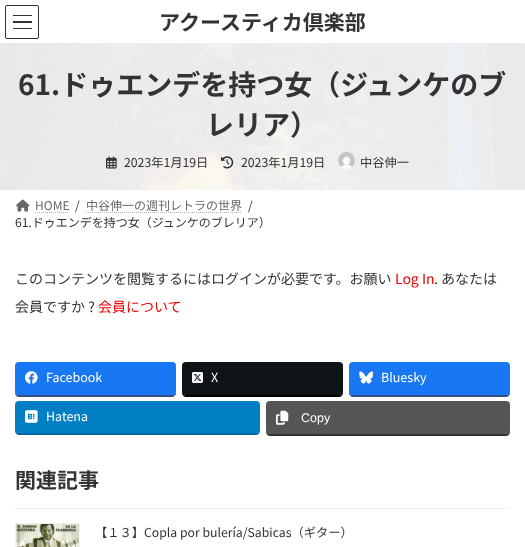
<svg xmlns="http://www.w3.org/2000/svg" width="525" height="547">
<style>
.a{font:bold 21px Noto Sans JP;fill:#333}
.b{font:bold 28px Noto Sans JP;fill:#333}
.c{font:12.25px Noto Sans JP;fill:#333}
.d{font:12px Noto Sans JP;fill:#666}
.e{font:12px Noto Sans JP;fill:#333}
.f{font:14px Noto Sans JP;fill:#333}
.g{font:14px Noto Sans JP;fill:#e00}
.h{font:12.5px Noto Sans JP;fill:#fff}
.i{font:12.5px Liberation Sans;fill:#fff}
</style>
<rect width="100%" height="100%" fill="#fff"/>
<path fill="#333" d="M13 15h19v1H13z"/>
<path fill="#333" d="M13 21h19v2H13z"/>
<path fill="#333" d="M13 28h19v1H13z"/>
<rect fill="none" stroke="#333" x="5.5" y="5.5" width="33" height="33" rx="1.5"/>
<image href="1.png" x="0" y="43" width="525" height="147"/>
<image href="2.png" x="106" y="156" width="11" height="13"/>
<image href="3.png" x="221" y="156" width="13" height="13"/>
<image href="4.png" x="338" y="152" width="17" height="17"/>
<image href="5.png" x="16" y="199" width="14" height="13"/>
<path fill="none" stroke="#b3b3b3" stroke-dasharray="1 1" d="M35 212.5h34"/>
<path fill="none" stroke="#b3b3b3" stroke-dasharray="1 1" d="M86 212.5h156"/>
<path fill="#344e84" d="M15 391v2c0 2 2 4 4 4h153c2 0 4-2 4-4v-2c0 2-2 4-4 4h-153c-2 0-4-2-4-4z"/>
<rect fill="#1877f2" x="15" y="362" width="161" height="33" rx="4"/>
<image href="6.png" x="25" y="371" width="13" height="13"/>
<path fill="#000" d="M182 391v2c0 2 2 4 4 4h153c2 0 4-2 4-4v-2c0 2-2 4-4 4h-153c-2 0-4-2-4-4z"/>
<rect fill="#0f1419" x="182" y="362" width="161" height="33" rx="4"/>
<image href="7.png" x="192" y="372" width="12" height="11"/>
<path fill="#344e84" d="M349 391v2c0 2 2 4 4 4h153c2 0 4-2 4-4v-2c0 2-2 4-4 4h-153c-2 0-4-2-4-4z"/>
<rect fill="#1877f2" x="349" y="362" width="161" height="33" rx="4"/>
<image href="8.png" x="359" y="371" width="14" height="13"/>
<path fill="#00679f" d="M15 429v2c0 2 2 4 4 4h237c2 0 4-2 4-4v-2c0 2-2 4-4 4h-237c-2 0-4-2-4-4z"/>
<rect fill="#007fc5" x="15" y="401" width="245" height="32" rx="4"/>
<image href="9.png" x="25" y="410" width="13" height="13"/>
<path fill="#333" d="M266 430v2c0 2 2 4 4 4h236c2 0 4-2 4-4v-2c0 2-2 4-4 4h-236c-2 0-4-2-4-4z"/>
<rect fill="#555" x="266" y="401" width="244" height="33" rx="4"/>
<image href="10.png" x="276" y="410" width="13" height="15"/>
<path fill="#f0f0f0" d="M15 508h495v1H15z"/>
<path fill="none" stroke="#f0f0f0" d="M15.5 523.5h64v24H15.5z"/>
<image href="11.png" x="16" y="524" width="63" height="23"/>
<text class="a" x="159" y="30">アクースティカ倶楽部</text>
<text class="b" x="18" y="95">61.ドゥエンデを持つ女（ジュンケのブ</text>
<text class="b" x="206" y="135">レリア）</text>
<text class="c" x="124" y="167">2023年1月19日</text>
<text class="c" x="241" y="167">2023年1月19日</text>
<text class="c" x="360" y="167">中谷伸一</text>
<text class="d" x="35" y="210">HOME</text>
<text class="e" x="75" y="210">/</text>
<text class="d" x="86" y="210">中谷伸一の週刊レトラの世界</text>
<text class="e" x="248" y="210">/</text>
<text class="e" x="15" y="227">61.ドゥエンデを持つ女（ジュンケのブレリア）</text>
<text class="f" x="15" y="284">このコンテンツを閲覧するにはログインが必要です。お願い</text>
<text class="g" x="395" y="284">Log In</text>
<text class="f" x="434" y="284">. あなたは</text>
<text class="f" x="15" y="312">会員ですか ?</text>
<text class="g" x="98" y="312">会員について</text>
<text class="h" x="46" y="382">Facebook</text>
<text class="h" x="211" y="382">X</text>
<text class="h" x="381" y="382">Bluesky</text>
<text class="h" x="46" y="421">Hatena</text>
<text class="i" x="301" y="422">Copy</text>
<text class="a" x="15" y="488">関連記事</text>
<text class="c" x="95" y="537">【１３】Copla por bulería/Sabicas（ギター）</text>
</svg>
